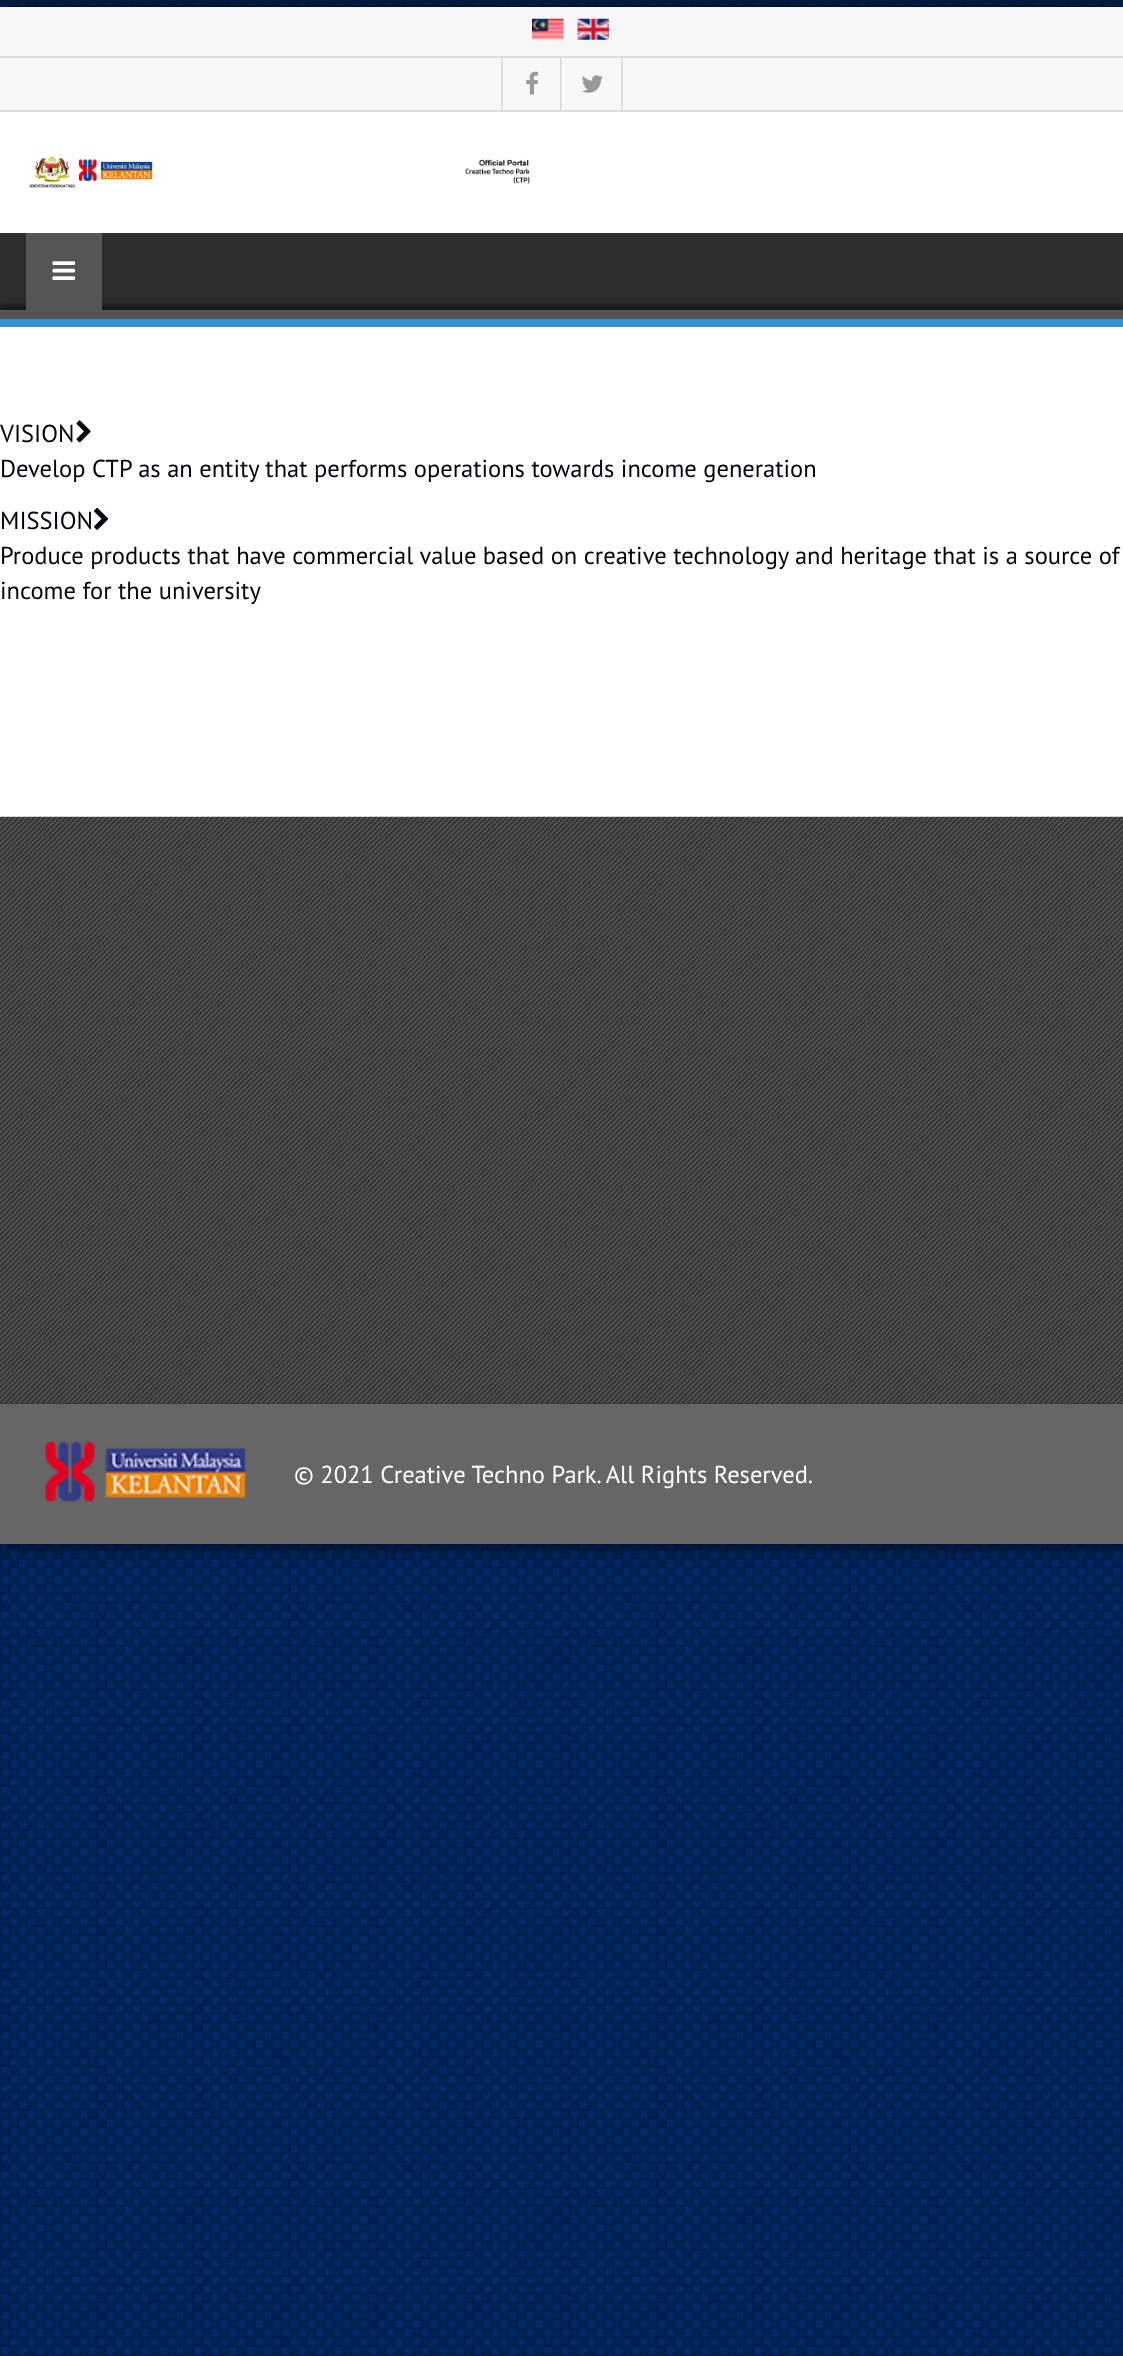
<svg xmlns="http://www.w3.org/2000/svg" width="1123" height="2356">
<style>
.a{font:24.5px PT Sans;fill:#01000c}
.b{font:24.5px PT Sans;fill:#fff}
</style>
<rect width="100%" height="100%" fill="#fff"/>
<image href="1.png" x="0" y="0" width="1123" height="2356"/>
<path fill="#000000e6" filter="blur(9px)" d="M0 7h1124v1537H0z"/>
<path fill="#fff" d="M0 112h1123v705H0z"/>
<path fill="#f7f7f7" d="M0 7h1123v103H0z"/>
<path fill="#ddd" d="M0 110h1123v2H0z"/>
<path fill="#ddd" d="M0 56h1123v2H0z"/>
<image href="2.png" x="532" y="18" width="32" height="22"/>
<image href="3.png" x="577" y="18" width="32" height="22"/>
<path fill="#ddd" d="M560 58h2v52H560z"/>
<path fill="#ddd" d="M501 58h2v52H501z"/>
<image href="4.png" x="526" y="71" width="13" height="24"/>
<path fill="#ddd" d="M621 58h2v52H621z"/>
<path fill="#fff" d="M562 58h2v52H562z"/>
<image href="5.png" x="582" y="75" width="21" height="18"/>
<image href="6.png" x="29" y="156" width="501" height="32"/>
<path fill="#2d2d2d" d="M0 233h1123v77H0z"/>
<path fill="#3291d1" d="M0 319h1123v8H0z"/>
<path fill="#00000080" filter="blur(2.5px)" d="M0 305h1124v8H0z"/>
<path fill="#555" d="M26 233h76v77H26z"/>
<image href="7.png" x="52" y="261" width="23" height="19"/>
<path fill="#555" d="M0 310h1123v9H0z"/>
<image href="8.png" x="76" y="420" width="15" height="23"/>
<image href="9.png" x="94" y="507" width="15" height="23"/>
<path fill="#383838" d="M0 1403h1123v1H0z"/>
<image href="10.png" x="0" y="816" width="1123" height="587"/>
<path fill="#666" d="M0 1404h1123v140H0z"/>
<image href="11.png" x="45" y="1441" width="201" height="61"/>
<text class="a" x="0" y="442">VISION</text>
<text class="a" x="0" y="477">Develop CTP as an entity that performs operations towards income generation</text>
<text class="a" x="0" y="529">MISSION</text>
<text class="a" x="0" y="564">Produce products that have commercial value based on creative technology and heritage that is a source of</text>
<text class="a" x="0" y="599">income for the university</text>
<text class="b" x="294" y="1483">© 2021 Creative Techno Park. All Rights Reserved.</text>
</svg>
